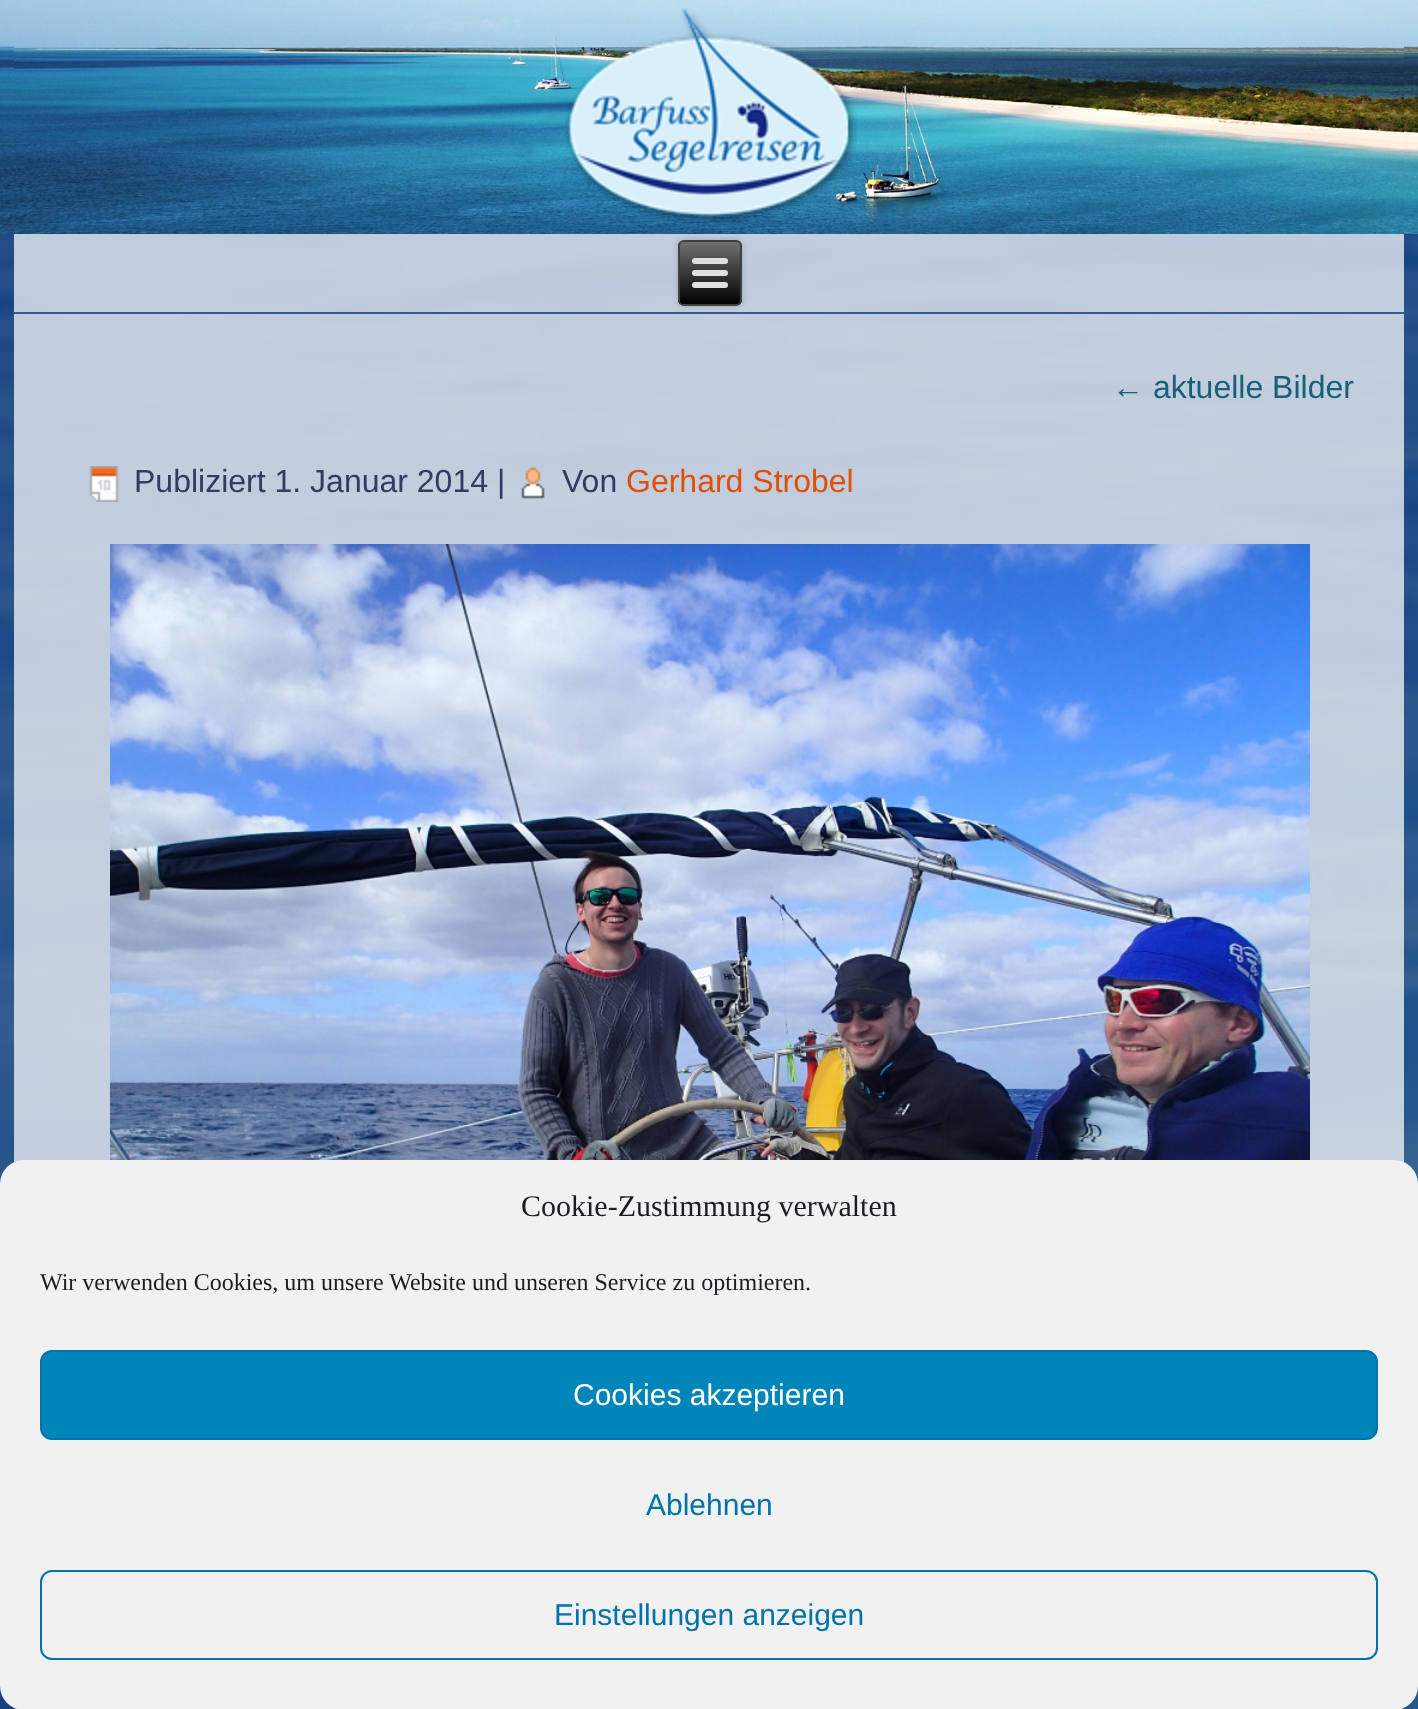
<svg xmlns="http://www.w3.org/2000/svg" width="1418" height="1709">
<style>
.a{font:32px Liberation Sans;fill:#186078}
.b{font:32px Liberation Sans;fill:#323b62}
.c{font:32px Liberation Sans;fill:#e14e05}
.d{font:30px Liberation Serif;fill:#191e23}
.e{font:24px Liberation Serif;fill:#191e23}
.f{font:30px Liberation Sans;fill:#fff}
.g{font:30px Liberation Sans;fill:#0073aa}
</style>
<defs>
<clipPath id="clip1"><rect x="678" y="240" width="64" height="66" rx="6"/></clipPath>
<linearGradient id="g1" gradientUnits="userSpaceOnUse" x1="710" y1="242" x2="710" y2="304"><stop offset="0" stop-color="#707070"/><stop offset="1" stop-color="#000"/></linearGradient>
</defs>
<rect width="100%" height="100%" fill="#fff"/>
<image href="1.png" x="0" y="234" width="1418" height="1475"/>
<image href="2.png" x="0" y="0" width="1418" height="234"/>
<image href="3.png" x="14" y="0" width="1390" height="234"/>
<image href="4.png" x="565" y="8" width="292" height="215"/>
<path fill="#325c8f" d="M14 312h1390v2H14z"/>
<rect fill="#00000033" filter="blur(3px)" x="678" y="240" width="64" height="66" rx="6"/>
<g clip-path="url(#clip1)">
<path fill="url(#g1)" d="M678 242h64v62H678z"/>
</g>
<rect fill="none" stroke="#404040" stroke-width="2" x="679" y="241" width="62" height="64" rx="5"/>
<rect fill="#e0e0e0" x="692" y="258" width="36" height="6" rx="3"/>
<rect fill="#e0e0e0" x="692" y="270" width="36" height="6" rx="3"/>
<rect fill="#e0e0e0" x="692" y="282" width="36" height="6" rx="3"/>
<image href="5.png" x="89" y="466" width="30" height="36"/>
<image href="6.png" x="521" y="467" width="24" height="32"/>
<image href="7.png" x="110" y="544" width="1200" height="616"/>
<rect fill="#f1f1f1" y="1160" width="1418" height="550" rx="24"/>
<rect fill="#0085ba" stroke="#0073aa" stroke-width="2" x="41" y="1351" width="1336" height="88" rx="11"/>
<rect fill="none" stroke="#0073aa" stroke-width="2" x="41" y="1571" width="1336" height="88" rx="11"/>
<text class="a" x="1112" y="398">← aktuelle Bilder</text>
<text class="b" x="134" y="492">Publiziert 1. Januar 2014 |</text>
<text class="b" x="562" y="492">Von</text>
<text class="c" x="626" y="492">Gerhard Strobel</text>
<text class="d" x="521" y="1216">Cookie-Zustimmung verwalten</text>
<text class="e" x="40" y="1290">Wir verwenden Cookies, um unsere Website und unseren Service zu optimieren.</text>
<text class="f" x="573" y="1405">Cookies akzeptieren</text>
<text class="g" x="646" y="1515">Ablehnen</text>
<text class="g" x="554" y="1625">Einstellungen anzeigen</text>
</svg>
